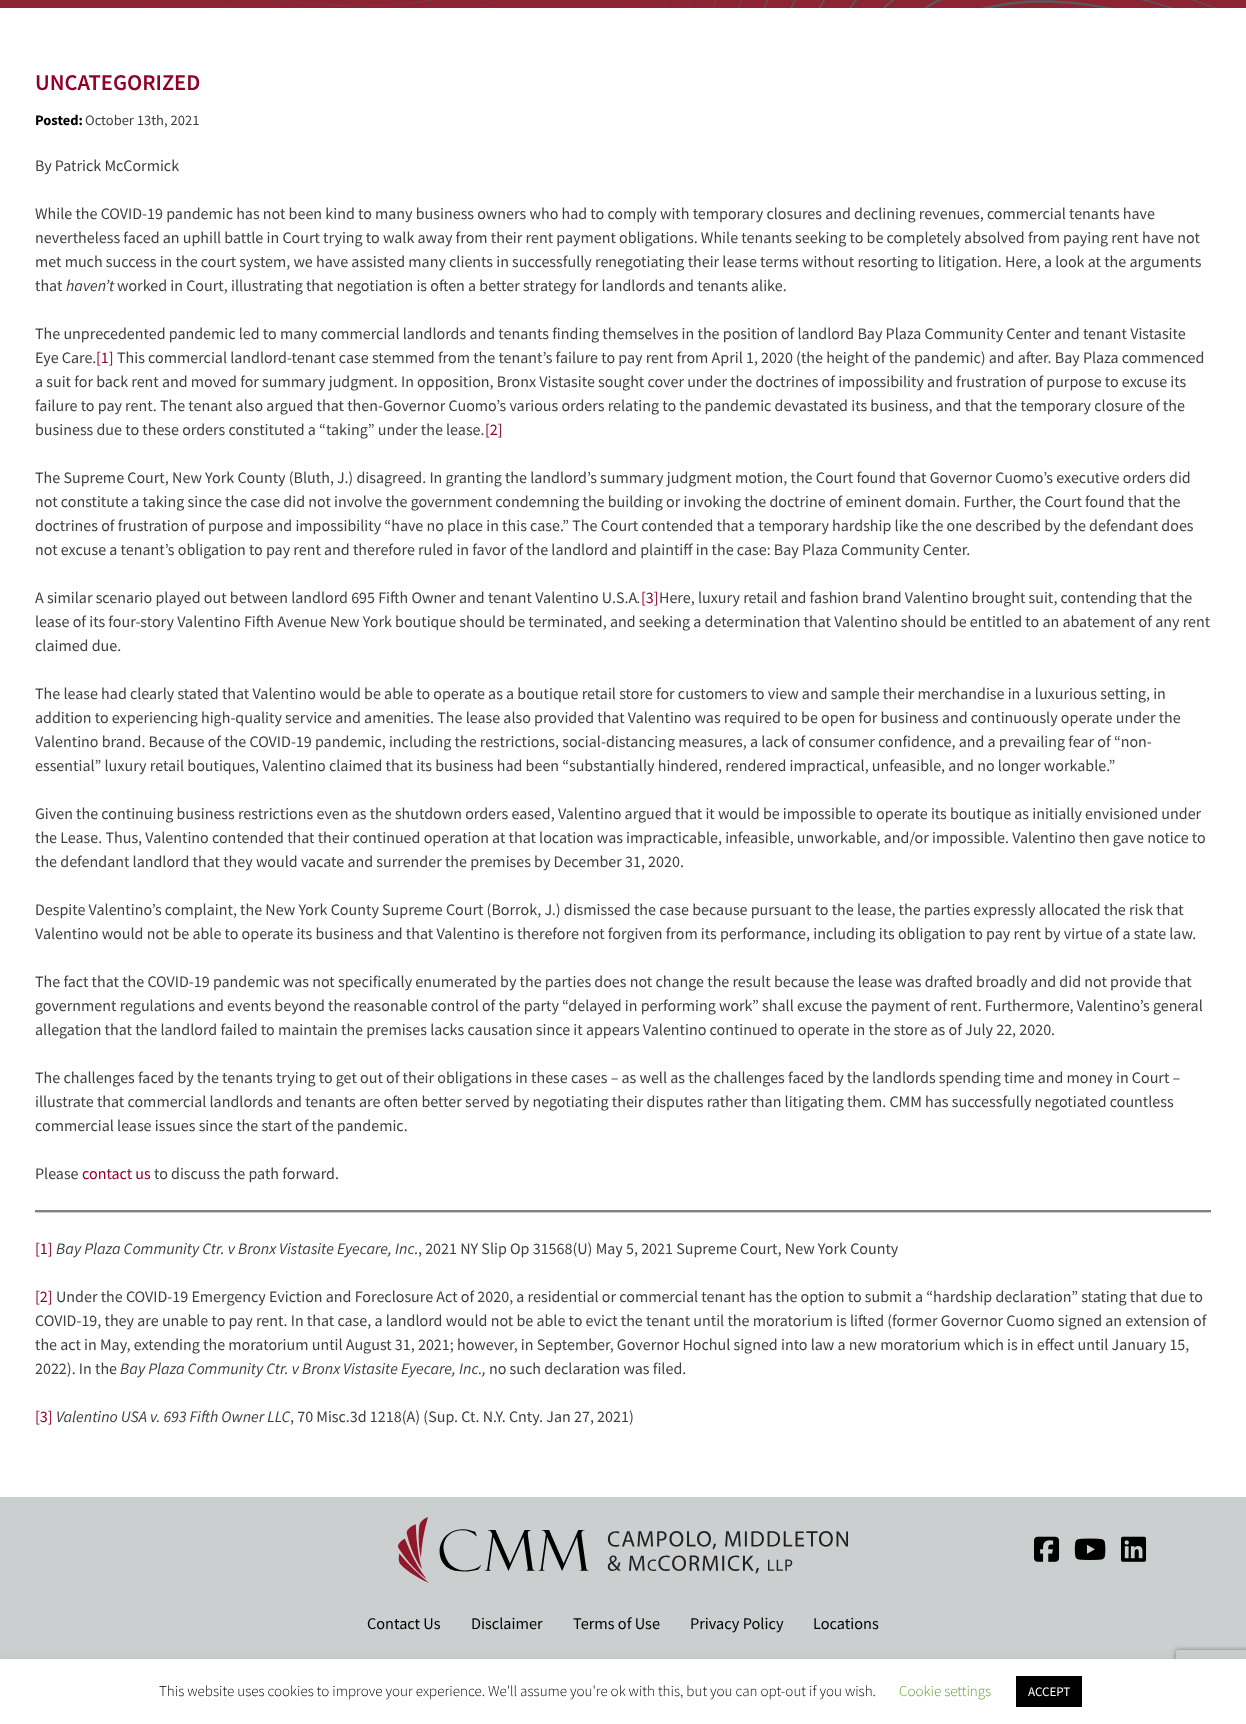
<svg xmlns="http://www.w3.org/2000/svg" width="1246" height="1724">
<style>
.a{font:600 22.5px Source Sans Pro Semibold;fill:#900027}
.b{font:bold 14.5px Source Sans Pro;fill:#000}
.c{font:14.5px Source Sans Pro;fill:#404040}
.d{font:16px Source Sans Pro;fill:#404040}
.e{font:italic 16px Source Sans Pro;fill:#404040}
.f{font:16px Source Sans Pro;fill:#900027}
.g{font:16.25px Source Sans Pro;fill:#000}
.h{font:300 15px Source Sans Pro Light;fill:#000}
.i{font:300 15px Source Sans Pro Light;fill:#62a329}
.j{font:13px Source Sans Pro;fill:#fff}
</style>
<defs>
<clipPath id="clip1"><path d="M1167 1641h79v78h-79zm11 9h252c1 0 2 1 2 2v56c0 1-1 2-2 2h-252c-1 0-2-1-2-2v-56c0-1 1-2 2-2z" clip-rule="evenodd"/></clipPath>
</defs>
<rect width="100%" height="100%" fill="#fff"/>
<image href="1.png" x="0" y="0" width="1246" height="8"/>
<path fill="#ccc" d="M35 1212h1176v1H35z"/>
<path fill="#808080" d="M35 1210h1176v2H35z"/>
<path fill="#cccfcf" d="M0 1497h1246v162H0z"/>
<image href="2.png" x="398" y="1517" width="450" height="66"/>
<image href="3.png" x="1034" y="1536" width="26" height="26"/>
<image href="4.png" x="1074" y="1538" width="32" height="22"/>
<image href="5.png" x="1121" y="1536" width="26" height="26"/>
<path fill="#acabab4d" filter="blur(5px)" d="M0 1658h1246v65H0z"/>
<g clip-path="url(#clip1)">
<rect fill="#808080" filter="blur(2.5px)" x="1176" y="1650" width="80" height="60" rx="2"/>
</g>
<path fill="#fff" d="M0 1659h1246v65H0z"/>
<path fill="#000" d="M1016 1676h66v31H1016z"/>
<text class="a" x="35" y="90">UNCATEGORIZED</text>
<text class="b" x="35" y="125">Posted:</text>
<text class="c" x="85" y="125">October 13th, 2021</text>
<text class="d" x="35" y="171">By Patrick McCormick</text>
<text class="d" x="35" y="219">While the COVID-19 pandemic has not been kind to many business owners who had to comply with temporary closures and declining revenues, commercial tenants have</text>
<text class="d" x="35" y="243">nevertheless faced an uphill battle in Court trying to walk away from their rent payment obligations. While tenants seeking to be completely absolved from paying rent have not</text>
<text class="d" x="35" y="267">met much success in the court system, we have assisted many clients in successfully renegotiating their lease terms without resorting to litigation. Here, a look at the arguments</text>
<text class="d" x="35" y="291">that</text>
<text class="e" x="66" y="291">haven’t</text>
<text class="d" x="117" y="291">worked in Court, illustrating that negotiation is often a better strategy for landlords and tenants alike.</text>
<text class="d" x="35" y="339">The unprecedented pandemic led to many commercial landlords and tenants finding themselves in the position of landlord Bay Plaza Community Center and tenant Vistasite</text>
<text class="d" x="35" y="363">Eye Care.</text>
<text class="f" x="96" y="363">[1]</text>
<text class="d" x="117" y="363">This commercial landlord-tenant case stemmed from the tenant’s failure to pay rent from April 1, 2020 (the height of the pandemic) and after. Bay Plaza commenced</text>
<text class="d" x="35" y="387">a suit for back rent and moved for summary judgment. In opposition, Bronx Vistasite sought cover under the doctrines of impossibility and frustration of purpose to excuse its</text>
<text class="d" x="35" y="411">failure to pay rent. The tenant also argued that then-Governor Cuomo’s various orders relating to the pandemic devastated its business, and that the temporary closure of the</text>
<text class="d" x="35" y="435">business due to these orders constituted a “taking” under the lease.</text>
<text class="f" x="485" y="435">[2]</text>
<text class="d" x="35" y="483">The Supreme Court, New York County (Bluth, J.) disagreed. In granting the landlord’s summary judgment motion, the Court found that Governor Cuomo’s executive orders did</text>
<text class="d" x="35" y="507">not constitute a taking since the case did not involve the government condemning the building or invoking the doctrine of eminent domain. Further, the Court found that the</text>
<text class="d" x="35" y="531">doctrines of frustration of purpose and impossibility “have no place in this case.” The Court contended that a temporary hardship like the one described by the defendant does</text>
<text class="d" x="35" y="555">not excuse a tenant’s obligation to pay rent and therefore ruled in favor of the landlord and plaintiff in the case: Bay Plaza Community Center.</text>
<text class="d" x="35" y="603">A similar scenario played out between landlord 695 Fifth Owner and tenant Valentino U.S.A</text>
<text class="e" x="637" y="603">.</text>
<text class="f" x="641" y="603">[3]</text>
<text class="d" x="659" y="603">Here, luxury retail and fashion brand Valentino brought suit, contending that the</text>
<text class="d" x="35" y="627">lease of its four-story Valentino Fifth Avenue New York boutique should be terminated, and seeking a determination that Valentino should be entitled to an abatement of any rent</text>
<text class="d" x="35" y="651">claimed due.</text>
<text class="d" x="35" y="699">The lease had clearly stated that Valentino would be able to operate as a boutique retail store for customers to view and sample their merchandise in a luxurious setting, in</text>
<text class="d" x="35" y="723">addition to experiencing high-quality service and amenities. The lease also provided that Valentino was required to be open for business and continuously operate under the</text>
<text class="d" x="35" y="747">Valentino brand. Because of the COVID-19 pandemic, including the restrictions, social-distancing measures, a lack of consumer confidence, and a prevailing fear of “non-</text>
<text class="d" x="35" y="771">essential” luxury retail boutiques, Valentino claimed that its business had been “substantially hindered, rendered impractical, unfeasible, and no longer workable.”</text>
<text class="d" x="35" y="819">Given the continuing business restrictions even as the shutdown orders eased, Valentino argued that it would be impossible to operate its boutique as initially envisioned under</text>
<text class="d" x="35" y="843">the Lease. Thus, Valentino contended that their continued operation at that location was impracticable, infeasible, unworkable, and/or impossible. Valentino then gave notice to</text>
<text class="d" x="35" y="867">the defendant landlord that they would vacate and surrender the premises by December 31, 2020.</text>
<text class="d" x="35" y="915">Despite Valentino’s complaint, the New York County Supreme Court (Borrok, J.) dismissed the case because pursuant to the lease, the parties expressly allocated the risk that</text>
<text class="d" x="35" y="939">Valentino would not be able to operate its business and that Valentino is therefore not forgiven from its performance, including its obligation to pay rent by virtue of a state law.</text>
<text class="d" x="35" y="987">The fact that the COVID-19 pandemic was not specifically enumerated by the parties does not change the result because the lease was drafted broadly and did not provide that</text>
<text class="d" x="35" y="1011">government regulations and events beyond the reasonable control of the party “delayed in performing work” shall excuse the payment of rent. Furthermore, Valentino’s general</text>
<text class="d" x="35" y="1035">allegation that the landlord failed to maintain the premises lacks causation since it appears Valentino continued to operate in the store as of July 22, 2020.</text>
<text class="d" x="35" y="1083">The challenges faced by the tenants trying to get out of their obligations in these cases – as well as the challenges faced by the landlords spending time and money in Court –</text>
<text class="d" x="35" y="1107">illustrate that commercial landlords and tenants are often better served by negotiating their disputes rather than litigating them. CMM has successfully negotiated countless</text>
<text class="d" x="35" y="1131">commercial lease issues since the start of the pandemic.</text>
<text class="d" x="35" y="1179">Please</text>
<text class="f" x="82" y="1179">contact us</text>
<text class="d" x="154" y="1179">to discuss the path forward.</text>
<text class="f" x="35" y="1254">[1]</text>
<text class="e" x="56" y="1254">Bay Plaza Community Ctr. v Bronx Vistasite Eyecare, Inc</text>
<text class="d" x="414" y="1254">., 2021 NY Slip Op 31568(U) May 5, 2021 Supreme Court, New York County</text>
<text class="f" x="35" y="1302">[2]</text>
<text class="d" x="56" y="1302">Under the COVID-19 Emergency Eviction and Foreclosure Act of 2020, a residential or commercial tenant has the option to submit a “hardship declaration” stating that due to</text>
<text class="d" x="35" y="1326">COVID-19, they are unable to pay rent. In that case, a landlord would not be able to evict the tenant until the moratorium is lifted (former Governor Cuomo signed an extension of</text>
<text class="d" x="35" y="1350">the act in May, extending the moratorium until August 31, 2021; however, in September, Governor Hochul signed into law a new moratorium which is in effect until January 15,</text>
<text class="d" x="35" y="1374">2022). In the</text>
<text class="e" x="120" y="1374">Bay Plaza Community Ctr. v Bronx Vistasite Eyecare, Inc.,</text>
<text class="d" x="489" y="1374">no such declaration was filed.</text>
<text class="f" x="35" y="1422">[3]</text>
<text class="e" x="56" y="1422">Valentino USA v. 693 Fifth Owner LLC</text>
<text class="d" x="290" y="1422">, 70 Misc.3d 1218(A) (Sup. Ct. N.Y. Cnty. Jan 27, 2021)</text>
<text class="g" x="367" y="1629">Contact Us</text>
<text class="g" x="471" y="1629">Disclaimer</text>
<text class="g" x="573" y="1629">Terms of Use</text>
<text class="g" x="690" y="1629">Privacy Policy</text>
<text class="g" x="813" y="1629">Locations</text>
<text class="h" x="159" y="1696">This website uses cookies to improve your experience. We'll assume you're ok with this, but you can opt-out if you wish.</text>
<text class="i" x="899" y="1696">Cookie settings</text>
<text class="j" x="1028" y="1696">ACCEPT</text>
</svg>
